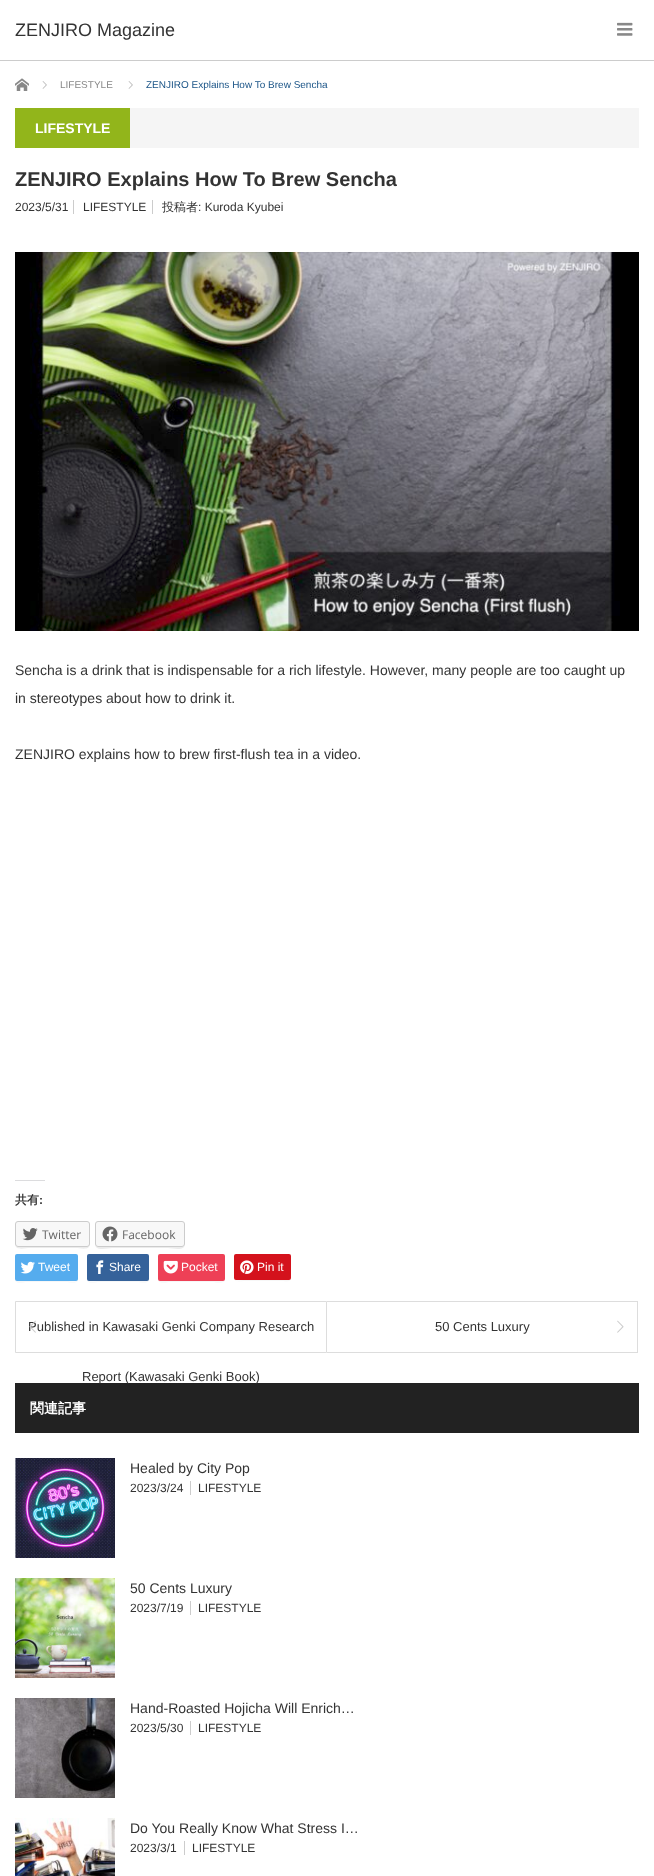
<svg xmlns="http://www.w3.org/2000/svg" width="654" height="1876">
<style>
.a{font:18px Liberation Sans;fill:#333}
.b{font:10px Liberation Sans;fill:#888}
.c{font:10px Liberation Sans;fill:#1a5487}
.d{font:bold 14px Liberation Sans;fill:#fff}
.e{font:bold 20px Liberation Sans;fill:#333}
.f{font:12px Liberation Sans;fill:#333}
.g{font:500 12px WenQuanYi Zen Hei;fill:#333}
.h{font:14px Liberation Sans;fill:#333}
.i{font:bold 12px WenQuanYi Zen Hei;fill:#333}
.j{font:bold 12px Liberation Sans;fill:#333}
.k{font:12px Open Sans;fill:#656565}
.l{font:12px Liberation Sans;fill:#fff}
.m{font:13px Liberation Sans;fill:#333}
.n{font:bold 14px WenQuanYi Zen Hei;fill:#fff}
</style>
<rect width="100%" height="100%" fill="#fff"/>
<path fill="#ccc" d="M0 60h654v1H0z"/>
<image href="1.png" x="617" y="22" width="16" height="14"/>
<image href="2.png" x="15" y="78" width="14" height="13"/>
<image href="3.png" x="42" y="81" width="5" height="8"/>
<image href="3.png" x="128" y="81" width="5" height="8"/>
<path fill="#f5f5f5" d="M130 108h509v40H130z"/>
<path fill="#92b51b" d="M15 108h115v40H15z"/>
<path fill="#ccc" d="M73 200h1v14H73z"/>
<path fill="#ccc" d="M152 200h1v14H152z"/>
<image href="4.png" x="15" y="252" width="624" height="379"/>
<path fill="#dcdcde" d="M15 1180h30v1H15z"/>
<path fill="#ebebeb" d="M15 1244c0 7 10 4 15 4h46c4 0 14 3 14-4c0 2-1 3-3 3h-69c-2 0-3-1-3-3z"/>
<rect fill="#f8f8f8" stroke="#ccc" x="15.5" y="1221.5" width="74" height="25" rx="2.5"/>
<image href="5.png" x="22" y="1228" width="16" height="13"/>
<path fill="#ebebeb" d="M95 1244c0 8 13 4 17 4h56c4 0 17 4 17-4c0 2-1 3-3 3h-84c-2 0-3-1-3-3z"/>
<rect fill="#f8f8f8" stroke="#ccc" x="95.5" y="1221.5" width="89" height="25" rx="2.5"/>
<image href="6.png" x="102" y="1226" width="16" height="16"/>
<path fill="#f7f7f7" d="M15 1279c0 6 8 3 12 3h39c4 0 12 3 12-3c0 4-8 2-12 2h-50z"/>
<rect fill="#55acee" x="15" y="1254" width="63" height="27" rx="2"/>
<image href="7.png" x="20" y="1261" width="15" height="13"/>
<path fill="#f7f7f7" d="M87 1279c0 6 8 3 12 3h38c4 0 12 3 12-3l-1 2h-49c-4 0-12 2-12-2z"/>
<rect fill="#35629a" x="87" y="1254" width="62" height="27" rx="2"/>
<image href="8.png" x="96" y="1260" width="8" height="14"/>
<path fill="#f7f7f7" d="M158 1279c0 6 9 3 12 3h42c4 0 13 3 13-3l-1 2h-64l-2-1z"/>
<rect fill="#ee4056" x="158" y="1254" width="67" height="27" rx="2"/>
<image href="9.png" x="163" y="1260" width="15" height="14"/>
<path fill="#f7f7f7" d="M234 1278c0 5 7 3 11 3h35c4 0 11 2 11-3l-1 2h-45c-4 0-11 2-11-2z"/>
<rect fill="#d4121c" x="234" y="1254" width="57" height="26" rx="2"/>
<image href="10.png" x="240" y="1260" width="14" height="14"/>
<path fill="none" stroke="#ddd" d="M15.5 1301.5h311v51H15.5z"/>
<path fill="#ddd" d="M327 1301h311v1H327z"/>
<path fill="#ddd" d="M637 1301h1v52H637z"/>
<path fill="#ddd" d="M327 1352h311v1H327z"/>
<image href="12.png" x="617" y="1320" width="7" height="13"/>
<path fill="#222" d="M15 1383h624v50H15z"/>
<image href="13.png" x="15" y="1458" width="100" height="100"/>
<path fill="#ccc" d="M190 1481h1v14H190z"/>
<image href="14.png" x="15" y="1578" width="100" height="100"/>
<path fill="#ccc" d="M190 1601h1v14H190z"/>
<image href="15.png" x="15" y="1698" width="100" height="100"/>
<path fill="#ccc" d="M190 1721h1v14H190z"/>
<image href="16.png" x="15" y="1818" width="100" height="58"/>
<path fill="#ccc" d="M184 1841h1v14H184z"/>
<text class="a" x="15" y="36">ZENJIRO Magazine</text>
<text class="b" x="60" y="88">LIFESTYLE</text>
<text class="c" x="146" y="88">ZENJIRO Explains How To Brew Sencha</text>
<text class="d" x="35" y="133">LIFESTYLE</text>
<text class="e" x="15" y="186">ZENJIRO Explains How To Brew Sencha</text>
<text class="f" x="15" y="211">2023/5/31</text>
<text class="f" x="83" y="211">LIFESTYLE</text>
<text class="g" x="162" y="211">投稿者</text>
<text class="f" x="198" y="211">: Kuroda Kyubei</text>
<text class="h" x="15" y="675">Sencha is a drink that is indispensable for a rich lifestyle. However, many people are too caught up</text>
<text class="h" x="15" y="703">in stereotypes about how to drink it.</text>
<text class="h" x="15" y="759">ZENJIRO explains how to brew first-flush tea in a video.</text>
<text class="i" x="15" y="1204">共有</text>
<text class="j" x="39" y="1204">:</text>
<text class="k" x="42" y="1239">Twitter</text>
<text class="k" x="122" y="1239">Facebook</text>
<text class="l" x="38" y="1271">Tweet</text>
<text class="l" x="109" y="1271">Share</text>
<text class="l" x="181" y="1271">Pocket</text>
<text class="l" x="257" y="1271">Pin it</text>
<text class="m" x="28" y="1331">Published in Kawasaki Genki Company Research</text>
<image href="11.png" x="29" y="1320" width="7" height="13"/>
<text class="m" x="82" y="1381">Report (Kawasaki Genki Book)</text>
<text class="m" x="435" y="1331">50 Cents Luxury</text>
<text class="n" x="30" y="1413">関連記事</text>
<text class="h" x="130" y="1473">Healed by City Pop</text>
<text class="f" x="130" y="1492">2023/3/24</text>
<text class="f" x="198" y="1492">LIFESTYLE</text>
<text class="h" x="130" y="1593">50 Cents Luxury</text>
<text class="f" x="130" y="1612">2023/7/19</text>
<text class="f" x="198" y="1612">LIFESTYLE</text>
<text class="h" x="130" y="1713">Hand-Roasted Hojicha Will Enrich…</text>
<text class="f" x="130" y="1732">2023/5/30</text>
<text class="f" x="198" y="1732">LIFESTYLE</text>
<text class="h" x="130" y="1833">Do You Really Know What Stress I…</text>
<text class="f" x="130" y="1852">2023/3/1</text>
<text class="f" x="192" y="1852">LIFESTYLE</text>
</svg>
